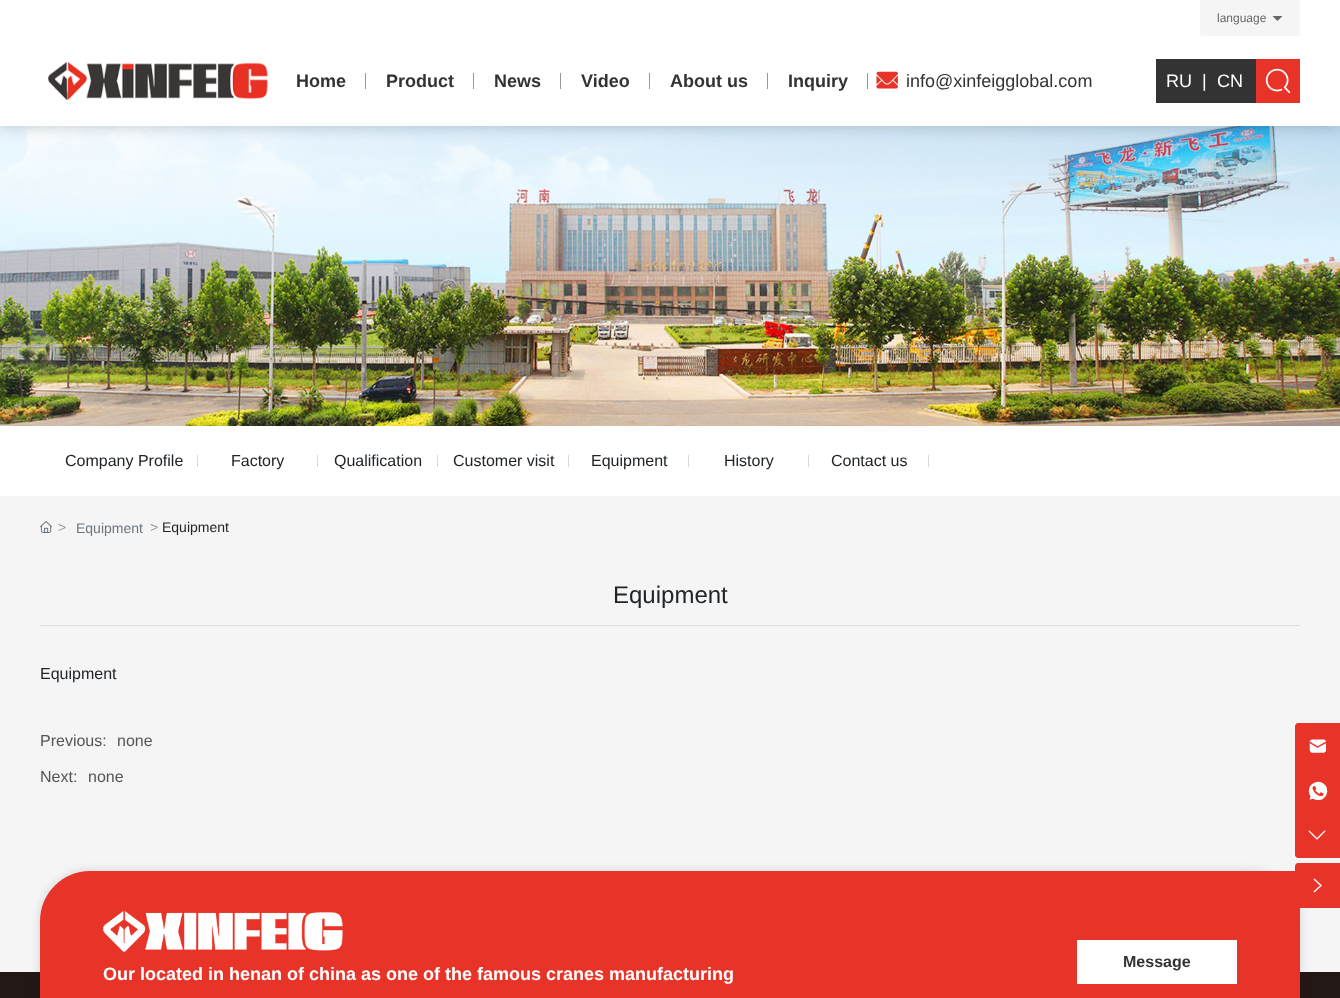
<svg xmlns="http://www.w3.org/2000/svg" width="1340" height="998">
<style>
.a{font:12px Liberation Sans;fill:#666}
.b{font:bold 18px Liberation Sans;fill:#333}
.c{font:18px Liberation Sans;fill:#333}
.d{font:18px Liberation Sans;fill:#fff}
.e{font:16px Liberation Sans;fill:#212529}
.f{font:14px Liberation Sans;fill:#999}
.g{font:14px Liberation Sans;fill:#6c757d}
.h{font:14px Liberation Sans;fill:#212529}
.i{font:24px Liberation Sans;fill:#212529}
.j{font:16px Liberation Sans;fill:#555}
.k{font:bold 16px Liberation Sans;fill:#333}
.l{font:bold 18px Liberation Sans;fill:#fff}
</style>
<rect width="100%" height="100%" fill="#f5f5f5"/>
<image href="4.png" x="0" y="126" width="1340" height="300"/>
<path fill="#00000033" filter="blur(7.5px)" d="M0 0h1340v126H0z"/>
<path fill="#fff" d="M0 0h1340v126H0z"/>
<rect fill="#f5f5f5" x="1200" width="100" height="36" rx="3"/>
<path fill="#666" d="M1272.5 16l5 5l5-5z"/>
<image href="1.png" x="48" y="62" width="220" height="38"/>
<path fill="#999" d="M365 73h1v16H365z"/>
<path fill="#999" d="M473 73h1v16H473z"/>
<path fill="#999" d="M560 73h1v16H560z"/>
<path fill="#999" d="M649 73h1v16H649z"/>
<path fill="#999" d="M767 73h1v16H767z"/>
<path fill="#999" d="M867 73h1v16H867z"/>
<image href="2.png" x="876" y="71" width="22" height="18"/>
<path fill="#333" d="M1156 59h100v44H1156z"/>
<path fill="#e83428" d="M1256 59h44v44H1256z"/>
<image href="3.png" x="1265" y="68" width="26" height="26"/>
<path fill="#fff" d="M0 426h1340v70H0z"/>
<path fill="#d9d9d9" d="M197 455h1v12H197z"/>
<path fill="#d9d9d9" d="M317 455h1v12H317z"/>
<path fill="#d9d9d9" d="M437 455h1v12H437z"/>
<path fill="#d9d9d9" d="M568 455h1v12H568z"/>
<path fill="#d9d9d9" d="M688 455h1v12H688z"/>
<path fill="#d9d9d9" d="M808 455h1v12H808z"/>
<path fill="#d9d9d9" d="M928 455h1v12H928z"/>
<image href="5.png" x="40" y="521" width="12" height="12"/>
<path fill="#ddd" d="M40 625h1260v1H40z"/>
<path fill="#231815" d="M0 972h1340v26H0z"/>
<rect fill="#000f2826" filter="blur(5px)" x="40" y="871" width="1260" height="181" rx="50"/>
<path fill="#e83428" d="M1298 723h42v135h-42c-1.5 0-3-1.5-3-3v-129c0-1.5 1.5-3 3-3z"/>
<image href="6.png" x="1309" y="739" width="18" height="14"/>
<image href="7.png" x="1308" y="781" width="20" height="19"/>
<image href="8.png" x="1308" y="830" width="18" height="10"/>
<path fill="#e83428" d="M90 871h1210v127c0 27.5-22.5 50-50 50h-1210v-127c0-27.5 22.5-50 50-50z"/>
<path fill="#e83428" d="M1298 863h42v45h-42c-1.5 0-3-1.5-3-3v-39c0-1.5 1.5-3 3-3z"/>
<image href="9.png" x="1313" y="878" width="9" height="15"/>
<path fill="#fff" d="M1077 940h160v44H1077z"/>
<image href="10.png" x="103" y="911" width="240" height="41"/>
<text class="a" x="1217" y="22">language</text>
<text class="b" x="296" y="87">Home</text>
<text class="b" x="386" y="87">Product</text>
<text class="b" x="494" y="87">News</text>
<text class="b" x="581" y="87">Video</text>
<text class="b" x="670" y="87">About us</text>
<text class="b" x="788" y="87">Inquiry</text>
<text class="c" x="906" y="87">info@xinfeigglobal.com</text>
<text class="d" x="1166" y="87">RU</text>
<text class="d" x="1202" y="87">|</text>
<text class="d" x="1217" y="87">CN</text>
<text class="e" x="65" y="466">Company Profile</text>
<text class="e" x="231" y="466">Factory</text>
<text class="e" x="334" y="466">Qualification</text>
<text class="e" x="453" y="466">Customer visit</text>
<text class="e" x="591" y="466">Equipment</text>
<text class="e" x="724" y="466">History</text>
<text class="e" x="831" y="466">Contact us</text>
<text class="f" x="58" y="532">&gt;</text>
<text class="g" x="76" y="533">Equipment</text>
<text class="f" x="150" y="532">&gt;</text>
<text class="h" x="162" y="532">Equipment</text>
<text class="i" x="613" y="603">Equipment</text>
<text class="e" x="40" y="679">Equipment</text>
<text class="j" x="40" y="746">Previous:</text>
<text class="j" x="117" y="746">none</text>
<text class="j" x="40" y="782">Next:</text>
<text class="j" x="88" y="782">none</text>
<text class="k" x="1123" y="967">Message</text>
<text class="l" x="103" y="980">Our located in henan of china as one of the famous cranes manufacturing</text>
</svg>
